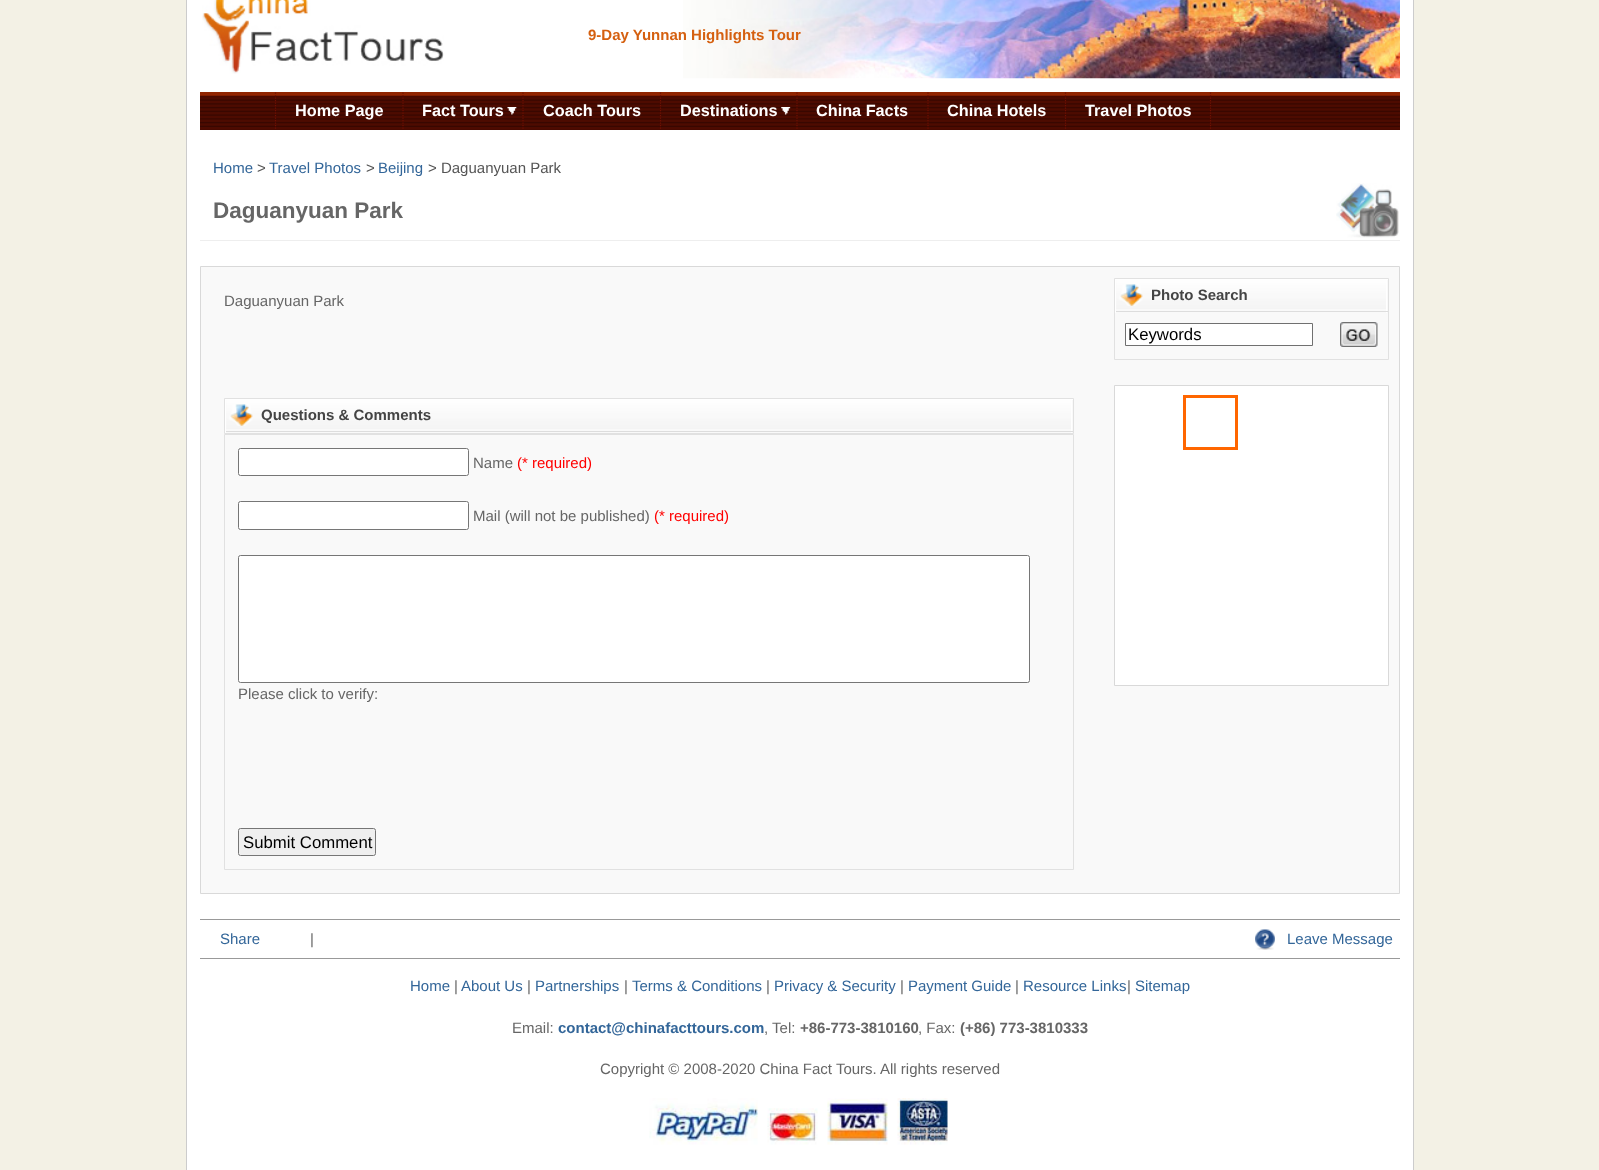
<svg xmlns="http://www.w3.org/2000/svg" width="1599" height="1170">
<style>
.a{font:bold 15px Liberation Sans;fill:#d56010}
.b{font:bold 16.25px Liberation Sans;fill:#fff}
.c{font:15px Liberation Sans;fill:#369}
.d{font:15px Liberation Sans;fill:#555}
.e{font:bold 22.5px Liberation Sans;fill:#666}
.f{font:15px Liberation Sans;fill:#666}
.g{font:bold 15px Liberation Sans;fill:#444}
.h{font:15px Liberation Sans;fill:#f00}
.i{font:16.75px Liberation Sans;fill:#000}
.j{font:bold 15px Liberation Sans;fill:#369}
.k{font:bold 15px Liberation Sans;fill:#666}
</style>
<rect width="100%" height="100%" fill="#f3f1e5"/>
<path fill="#fff" stroke="#ccc" d="M186.5 -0.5h1227v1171H186.5z"/>
<image href="1.png" x="202" y="0" width="242" height="74"/>
<image href="2.png" x="683" y="0" width="717" height="79"/>
<path fill="#4c0a00" d="M200 129h1200v1H200z"/>
<image href="3.png" x="200" y="92" width="1200" height="38"/>
<path fill="none" stroke="#6f1002" stroke-width="1.2" stroke-dasharray="1.25 1.25" d="M403 92.5v37.5"/>
<path fill="none" stroke="#6f1002" stroke-width="1.2" stroke-dasharray="1.25 1.25" d="M275.5 92.5v37.5"/>
<path fill="none" stroke="#6f1002" stroke-width="1.2" stroke-dasharray="1.25 1.25" d="M523 92.5v37.5"/>
<image href="4.png" x="507" y="107" width="10" height="8"/>
<path fill="none" stroke="#6f1002" stroke-width="1.2" stroke-dasharray="1.25 1.25" d="M660.5 92.5v37.5"/>
<path fill="none" stroke="#6f1002" stroke-width="1.2" stroke-dasharray="1.25 1.25" d="M797 92.5v37.5"/>
<image href="5.png" x="781" y="107" width="10" height="8"/>
<path fill="none" stroke="#6f1002" stroke-width="1.2" stroke-dasharray="1.25 1.25" d="M928 92.5v37.5"/>
<path fill="none" stroke="#6f1002" stroke-width="1.2" stroke-dasharray="1.25 1.25" d="M1065.5 92.5v37.5"/>
<path fill="none" stroke="#6f1002" stroke-width="1.2" stroke-dasharray="1.25 1.25" d="M1210.5 92.5v37.5"/>
<image href="6.png" x="1336" y="183" width="63" height="55"/>
<path fill="#eee" d="M200 240h1200v1H200z"/>
<path fill="#f9f9f9" stroke="#d9d9d9" d="M200.5 266.5h1199v627H200.5z"/>
<path fill="none" stroke="#e1e1e1" d="M224.5 398.5h849v35H224.5z"/>
<image href="7.png" x="226" y="400" width="845" height="29"/>
<path fill="#fff" d="M225 399h848v1H225z"/>
<path fill="#fff" d="M1071 399h1v34H1071z"/>
<path fill="#ddd" d="M225 431h848v1H225z"/>
<path fill="#fff" d="M225 399h1v34H225z"/>
<path fill="none" stroke="#e1e1e1" d="M224.5 434.5h849v435H224.5z"/>
<rect fill="#fff" stroke="#767676" x="238.5" y="448.5" width="230" height="27" rx="2"/>
<rect fill="#fff" stroke="#767676" x="238.5" y="501.5" width="230" height="28" rx="2"/>
<rect fill="#fff" stroke="#767676" x="238.5" y="555.5" width="791" height="127" rx="2"/>
<rect fill="#efefef" stroke="#767676" x="238.5" y="828.5" width="137" height="27" rx="2"/>
<path fill="none" stroke="#e1e1e1" d="M1114.5 278.5h274v81H1114.5z"/>
<image href="8.png" x="1116" y="280" width="270" height="29"/>
<path fill="#fff" d="M1115 279h273v1H1115z"/>
<path fill="#fff" d="M1386 279h1v34H1386z"/>
<path fill="#ddd" d="M1115 311h273v1H1115z"/>
<path fill="#fff" d="M1115 279h1v34H1115z"/>
<path fill="#fff" stroke="#707070" d="M1125.5 323.5h187v22H1125.5z"/>
<image href="9.png" x="1340" y="322" width="38" height="25"/>
<path fill="#fff" stroke="#d9d9d9" d="M1114.5 385.5h274v300H1114.5z"/>
<path fill="none" stroke="#f60" stroke-width="3" d="M1184.5 396.5h52v52H1184.5z"/>
<path fill="#999" d="M200 919h1200v1H200z"/>
<image href="10.png" x="1255" y="929" width="20" height="21"/>
<path fill="#999" d="M200 958h1200v1H200z"/>
<image href="11.png" x="649" y="1098" width="299" height="47"/>
<text class="a" x="588" y="40">9-Day Yunnan Highlights Tour</text>
<text class="b" x="295" y="116">Home Page</text>
<text class="b" x="422" y="116">Fact Tours</text>
<text class="b" x="543" y="116">Coach Tours</text>
<text class="b" x="680" y="116">Destinations</text>
<text class="b" x="816" y="116">China Facts</text>
<text class="b" x="947" y="116">China Hotels</text>
<text class="b" x="1085" y="116">Travel Photos</text>
<text class="c" x="213" y="173">Home</text>
<text class="d" x="257" y="173">&gt;</text>
<text class="c" x="269" y="173">Travel Photos</text>
<text class="d" x="366" y="173">&gt;</text>
<text class="c" x="378" y="173">Beijing</text>
<text class="d" x="428" y="173">&gt; Daguanyuan Park</text>
<text class="e" x="213" y="218">Daguanyuan Park</text>
<text class="f" x="224" y="306">Daguanyuan Park</text>
<text class="g" x="261" y="420">Questions &amp; Comments</text>
<text class="f" x="473" y="468">Name</text>
<text class="h" x="517" y="468">(* required)</text>
<text class="f" x="473" y="521">Mail (will not be published)</text>
<text class="h" x="654" y="521">(* required)</text>
<text class="f" x="238" y="699">Please click to verify:</text>
<text class="i" x="243" y="848">Submit Comment</text>
<text class="g" x="1151" y="300">Photo Search</text>
<text class="i" x="1128" y="340">Keywords</text>
<text class="c" x="220" y="944">Share</text>
<text class="f" x="310" y="944">|</text>
<text class="c" x="1287" y="944">Leave Message</text>
<text class="c" x="410" y="991">Home</text>
<text class="f" x="454" y="991">|</text>
<text class="c" x="461" y="991">About Us</text>
<text class="f" x="527" y="991">|</text>
<text class="c" x="535" y="991">Partnerships</text>
<text class="f" x="624" y="991">|</text>
<text class="c" x="632" y="991">Terms &amp; Conditions</text>
<text class="f" x="766" y="991">|</text>
<text class="c" x="774" y="991">Privacy &amp; Security</text>
<text class="f" x="900" y="991">|</text>
<text class="c" x="908" y="991">Payment Guide</text>
<text class="f" x="1015" y="991">|</text>
<text class="c" x="1023" y="991">Resource Links</text>
<text class="f" x="1127" y="991">|</text>
<text class="c" x="1135" y="991">Sitemap</text>
<text class="f" x="512" y="1033">Email:</text>
<text class="j" x="558" y="1033">contact@chinafacttours.com</text>
<text class="f" x="764" y="1033">, Tel:</text>
<text class="k" x="800" y="1033">+86-773-3810160</text>
<text class="f" x="918" y="1033">, Fax:</text>
<text class="k" x="960" y="1033">(+86) 773-3810333</text>
<text class="f" x="600" y="1074">Copyright © 2008-2020 China Fact Tours.</text>
<text class="f" x="880" y="1074">All rights reserved</text>
</svg>
